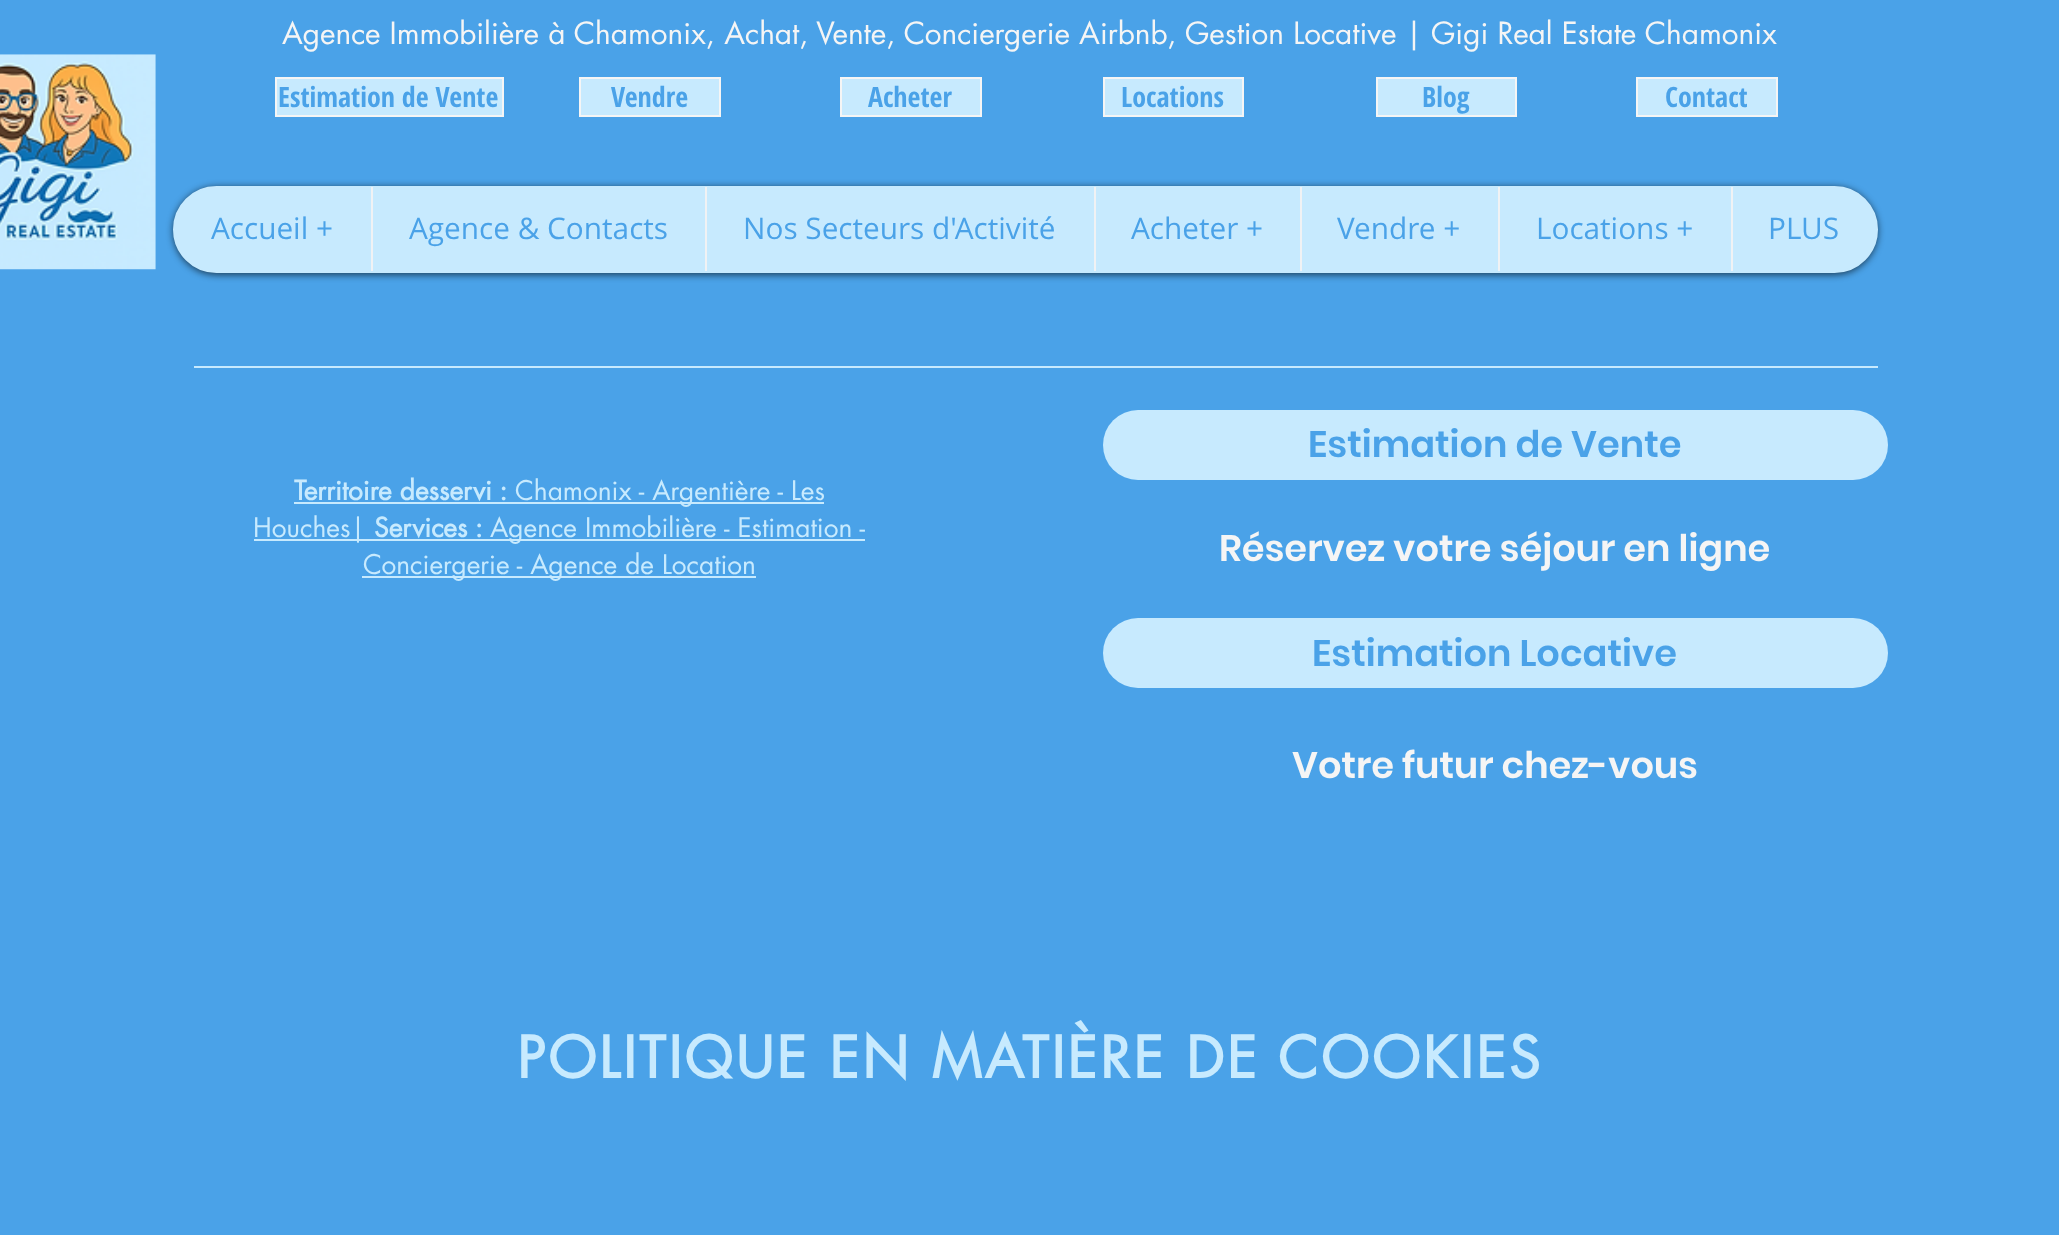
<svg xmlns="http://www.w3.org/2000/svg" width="2059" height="1235">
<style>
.a{font:29.75px futura;fill:#f5f5f5}
.b{font:bold 28px Open Sans Condensed;fill:#4aa2e8}
.c{font:29.75px Open Sans;fill:#4aa2e8}
.d{font:600 36.75px Poppins;fill:#4aa2e8}
.e{font:bold 26.25px futura;fill:#c7eafe}
.f{font:26.25px futura;fill:#c7eafe}
.g{font:600 36.75px Poppins;fill:#f5f5f5}
.h{font:bold 56px futura;letter-spacing:2.8px;fill:#c7eafe}
</style>
<rect width="100%" height="100%" fill="#4aa2e8"/>
<image href="1.png" x="0" y="54" width="156" height="216"/>
<path fill="#c7eafe" stroke="#f5f5f5" stroke-width="2" d="M276 78h227v38H276z"/>
<path fill="#c7eafe" stroke="#f5f5f5" stroke-width="2" d="M580 78h140v38H580z"/>
<path fill="#c7eafe" stroke="#f5f5f5" stroke-width="2" d="M841 78h140v38H841z"/>
<path fill="#c7eafe" stroke="#f5f5f5" stroke-width="2" d="M1104 78h139v38H1104z"/>
<path fill="#c7eafe" stroke="#f5f5f5" stroke-width="2" d="M1377 78h139v38H1377z"/>
<path fill="#c7eafe" stroke="#f5f5f5" stroke-width="2" d="M1637 78h140v38H1637z"/>
<rect fill="#00000099" filter="blur(3.5px)" x="173" y="187" width="1705" height="88" rx="44"/>
<rect fill="#c7eafe" stroke="#c7eafe" stroke-width="2" x="174" y="187" width="1703" height="85" rx="42.5"/>
<path fill="#f0f2f4" d="M371 187h2v84H371z"/>
<path fill="#f0f2f4" d="M705 187h2v84H705z"/>
<path fill="#f0f2f4" d="M1094 187h2v84H1094z"/>
<path fill="#f0f2f4" d="M1300 187h2v84H1300z"/>
<path fill="#f0f2f4" d="M1498 187h2v84H1498z"/>
<path fill="#f0f2f4" d="M1731 187h2v84H1731z"/>
<path fill="#c7eafe" d="M194 366h1684v2H194z"/>
<rect fill="#c7eafe" x="1103" y="410" width="785" height="70" rx="35"/>
<path fill="#c7eafe" d="M294 502h530v2H294z"/>
<path fill="#c7eafe" d="M254 539h611v2H254z"/>
<path fill="#c7eafe" d="M362 576h394v2H362z"/>
<rect fill="#c7eafe" x="1103" y="618" width="785" height="70" rx="35"/>
<text class="a" x="282" y="44">Agence Immobilière à Chamonix, Achat, Vente, Conciergerie Airbnb, Gestion Locative | Gigi Real Estate Chamonix</text>
<text class="b" x="278" y="107">Estimation de Vente</text>
<text class="b" x="611" y="107">Vendre</text>
<text class="b" x="868" y="107">Acheter</text>
<text class="b" x="1121" y="107">Locations</text>
<text class="b" x="1422" y="107">Blog</text>
<text class="b" x="1665" y="107">Contact</text>
<text class="c" x="211" y="239">Accueil +</text>
<text class="c" x="409" y="239">Agence &amp; Contacts</text>
<text class="c" x="743" y="239">Nos Secteurs d'Activité</text>
<text class="c" x="1131" y="239">Acheter +</text>
<text class="c" x="1337" y="239">Vendre +</text>
<text class="c" x="1536" y="239">Locations +</text>
<text class="c" x="1768" y="239">PLUS</text>
<text class="d" x="1308" y="457">Estimation de Vente</text>
<text class="e" x="294" y="500">Territoire desservi :</text>
<text class="f" x="515" y="500">Chamonix - Argentière - Les</text>
<text class="f" x="253" y="537">Houches|</text>
<text class="e" x="374" y="537">Services :</text>
<text class="f" x="490" y="537">Agence Immobilière - Estimation -</text>
<text class="f" x="363" y="574">Conciergerie - Agence de Location</text>
<text class="g" x="1219" y="561">Réservez votre séjour en ligne</text>
<text class="d" x="1312" y="666">Estimation Locative</text>
<text class="g" x="1292" y="778">Votre futur chez-vous</text>
<text class="h" x="517" y="1078">POLITIQUE EN MATIÈRE DE COOKIES</text>
</svg>
